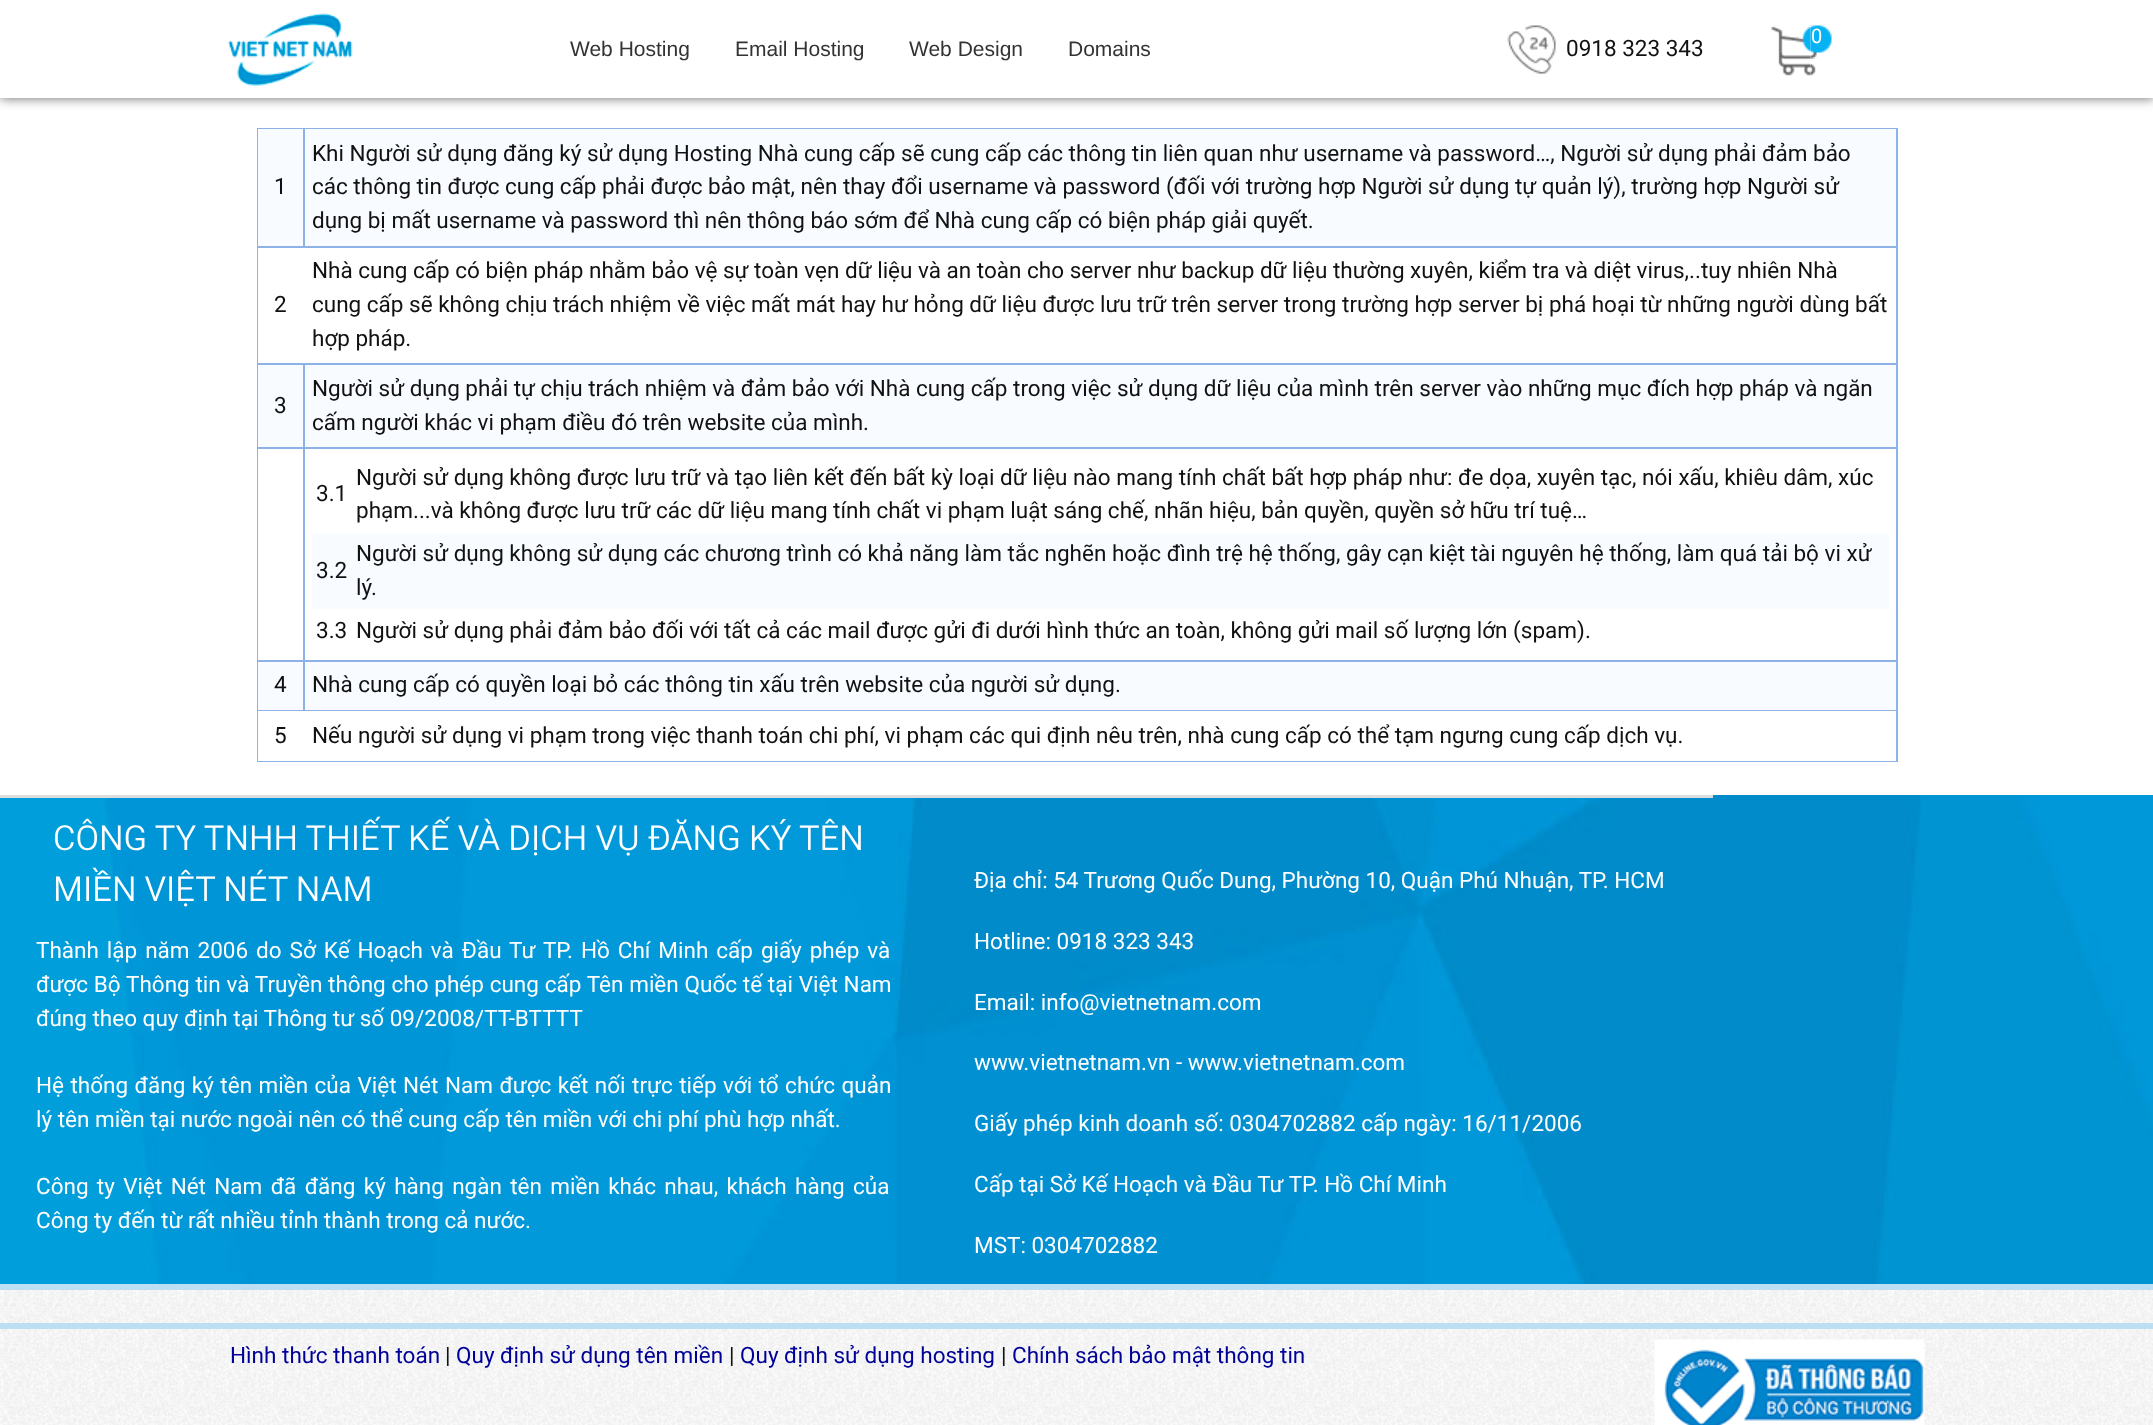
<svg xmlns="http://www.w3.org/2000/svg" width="2153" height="1425">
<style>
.a{font:20px Roboto;fill:#fff}
.b{font:21px Liberation Sans;fill:#333}
.c{font:22.5px Roboto;fill:#111}
.d{font:300 34.5px Roboto;fill:#fff}
.e{font:22.5px Roboto;fill:#fff}
.f{font:22.5px Roboto;fill:#009}
</style>
<rect width="100%" height="100%" fill="#fff"/>
<path fill="#666" filter="blur(6px)" d="M0 0h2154v98H0z"/>
<path fill="#fff" d="M0 0h2153v98H0z"/>
<image href="1.png" x="228" y="13" width="125" height="73"/>
<image href="3.png" x="1810" y="25" width="22" height="32"/>
<image href="2.png" x="1771" y="25" width="40" height="51"/>
<image href="4.png" x="1810" y="56" width="6" height="20"/>
<image href="5.png" x="1507" y="25" width="49" height="49"/>
<path fill="#8cb2e7" d="M257 128h1641v634H257z"/>
<path fill="#f8fbff" d="M258 129h45v117H258z"/>
<path fill="#f8fbff" d="M305 129h1591v117H305z"/>
<path fill="#fff" d="M258 248h1638v115H258z"/>
<path fill="#f8fbff" d="M258 365h45v82H258z"/>
<path fill="#f8fbff" d="M305 365h1591v82H305z"/>
<path fill="#fff" d="M258 449h45v211H258z"/>
<path fill="#fff" d="M305 449h1591v211H305z"/>
<path fill="#f8fbff" d="M312 533h1577v76H312z"/>
<path fill="#f8fbff" d="M258 662h45v48H258z"/>
<path fill="#f8fbff" d="M305 662h1591v48H305z"/>
<path fill="#fff" d="M258 711h1638v50H258z"/>
<image href="6.png" x="0" y="1290" width="2153" height="135"/>
<image href="7.png" x="0" y="795" width="2153" height="489"/>
<path fill="#ddd" d="M0 795h1713v3H0z"/>
<path fill="#bcdff3" d="M0 1284h2153v6H0z"/>
<path fill="#bcdff3" d="M0 1323h2153v6H0z"/>
<image href="8.png" x="1654" y="1339" width="271" height="86"/>
<text class="a" x="1811" y="43">0</text>
<text class="b" x="570" y="56">Web Hosting</text>
<text class="b" x="735" y="56">Email Hosting</text>
<text class="b" x="909" y="56">Web Design</text>
<text class="b" x="1068" y="56">Domains</text>
<text class="c" x="1566" y="56">0918 323 343</text>
<text class="c" x="274" y="194">1</text>
<text class="c" x="312" y="161">Khi Người sử dụng đăng ký sử dụng Hosting Nhà cung cấp sẽ cung cấp các thông tin liên quan như username và password…, Người sử dụng phải đảm bảo</text>
<text class="c" x="312" y="194">các thông tin được cung cấp phải được bảo mật, nên thay đổi username và password (đối với trường hợp Người sử dụng tự quản lý), trường hợp Người sử</text>
<text class="c" x="312" y="228">dụng bị mất username và password thì nên thông báo sớm để Nhà cung cấp có biện pháp giải quyết.</text>
<text class="c" x="274" y="312">2</text>
<text class="c" x="312" y="278">Nhà cung cấp có biện pháp nhằm bảo vệ sự toàn vẹn dữ liệu và an toàn cho server như backup dữ liệu thường xuyên, kiểm tra và diệt virus,..tuy nhiên Nhà</text>
<text class="c" x="312" y="312">cung cấp sẽ không chịu trách nhiệm về việc mất mát hay hư hỏng dữ liệu được lưu trữ trên server trong trường hợp server bị phá hoại từ những người dùng bất</text>
<text class="c" x="312" y="346">hợp pháp.</text>
<text class="c" x="274" y="413">3</text>
<text class="c" x="312" y="396">Người sử dụng phải tự chịu trách nhiệm và đảm bảo với Nhà cung cấp trong việc sử dụng dữ liệu của mình trên server vào những mục đích hợp pháp và ngăn</text>
<text class="c" x="312" y="430">cấm người khác vi phạm điều đó trên website của mình.</text>
<text class="c" x="316" y="501">3.1</text>
<text class="c" x="356" y="485">Người sử dụng không được lưu trữ và tạo liên kết đến bất kỳ loại dữ liệu nào mang tính chất bất hợp pháp như: đe dọa, xuyên tạc, nói xấu, khiêu dâm, xúc</text>
<text class="c" x="356" y="518">phạm...và không được lưu trữ các dữ liệu mang tính chất vi phạm luật sáng chế, nhãn hiệu, bản quyền, quyền sở hữu trí tuệ…</text>
<text class="c" x="316" y="578">3.2</text>
<text class="c" x="356" y="561">Người sử dụng không sử dụng các chương trình có khả năng làm tắc nghẽn hoặc đình trệ hệ thống, gây cạn kiệt tài nguyên hệ thống, làm quá tải bộ vi xử</text>
<text class="c" x="356" y="595">lý.</text>
<text class="c" x="316" y="638">3.3</text>
<text class="c" x="356" y="638">Người sử dụng phải đảm bảo đối với tất cả các mail được gửi đi dưới hình thức an toàn, không gửi mail số lượng lớn (spam).</text>
<text class="c" x="274" y="692">4</text>
<text class="c" x="312" y="692">Nhà cung cấp có quyền loại bỏ các thông tin xấu trên website của người sử dụng.</text>
<text class="c" x="274" y="743">5</text>
<text class="c" x="312" y="743">Nếu người sử dụng vi phạm trong việc thanh toán chi phí, vi phạm các qui định nêu trên, nhà cung cấp có thể tạm ngưng cung cấp dịch vụ.</text>
<text class="d" x="53" y="850" word-spacing="-0.25">CÔNG TY TNHH THIẾT KẾ VÀ DỊCH VỤ ĐĂNG KÝ TÊN</text>
<text class="d" x="53" y="901" word-spacing="-0.5">MIỀN VIỆT NÉT NAM</text>
<text class="e" x="36" y="958" word-spacing="2.4">Thành lập năm 2006 do Sở Kế Hoạch và Đầu Tư TP. Hồ Chí Minh cấp giấy phép và</text>
<text class="e" x="36" y="992" word-spacing="0.2">được Bộ Thông tin và Truyền thông cho phép cung cấp Tên miền Quốc tế tại Việt Nam</text>
<text class="e" x="36" y="1026">đúng theo quy định tại Thông tư số 09/2008/TT-BTTTT</text>
<text class="e" x="36" y="1093" word-spacing="0.9">Hệ thống đăng ký tên miền của Việt Nét Nam được kết nối trực tiếp với tổ chức quản</text>
<text class="e" x="36" y="1127">lý tên miền tại nước ngoài nên có thể cung cấp tên miền với chi phí phù hợp nhất.</text>
<text class="e" x="36" y="1194" word-spacing="2.75">Công ty Việt Nét Nam đã đăng ký hàng ngàn tên miền khác nhau, khách hàng của</text>
<text class="e" x="36" y="1228">Công ty đến từ rất nhiều tỉnh thành trong cả nước.</text>
<text class="e" x="974" y="888">Địa chỉ: 54 Trương Quốc Dung, Phường 10, Quận Phú Nhuận, TP. HCM</text>
<text class="e" x="974" y="949">Hotline: 0918 323 343</text>
<text class="e" x="974" y="1010">Email: info@vietnetnam.com</text>
<text class="e" x="974" y="1070">www.vietnetnam.vn - www.vietnetnam.com</text>
<text class="e" x="974" y="1131">Giấy phép kinh doanh số: 0304702882 cấp ngày: 16/11/2006</text>
<text class="e" x="974" y="1192">Cấp tại Sở Kế Hoạch và Đầu Tư TP. Hồ Chí Minh</text>
<text class="e" x="974" y="1253">MST: 0304702882</text>
<text class="f" x="230" y="1363">Hình thức thanh toán</text>
<text class="c" x="445" y="1363">|</text>
<text class="f" x="456" y="1363">Quy định sử dụng tên miền</text>
<text class="c" x="729" y="1363">|</text>
<text class="f" x="740" y="1363">Quy định sử dụng hosting</text>
<text class="c" x="1001" y="1363">|</text>
<text class="f" x="1012" y="1363">Chính sách bảo mật thông tin</text>
</svg>
